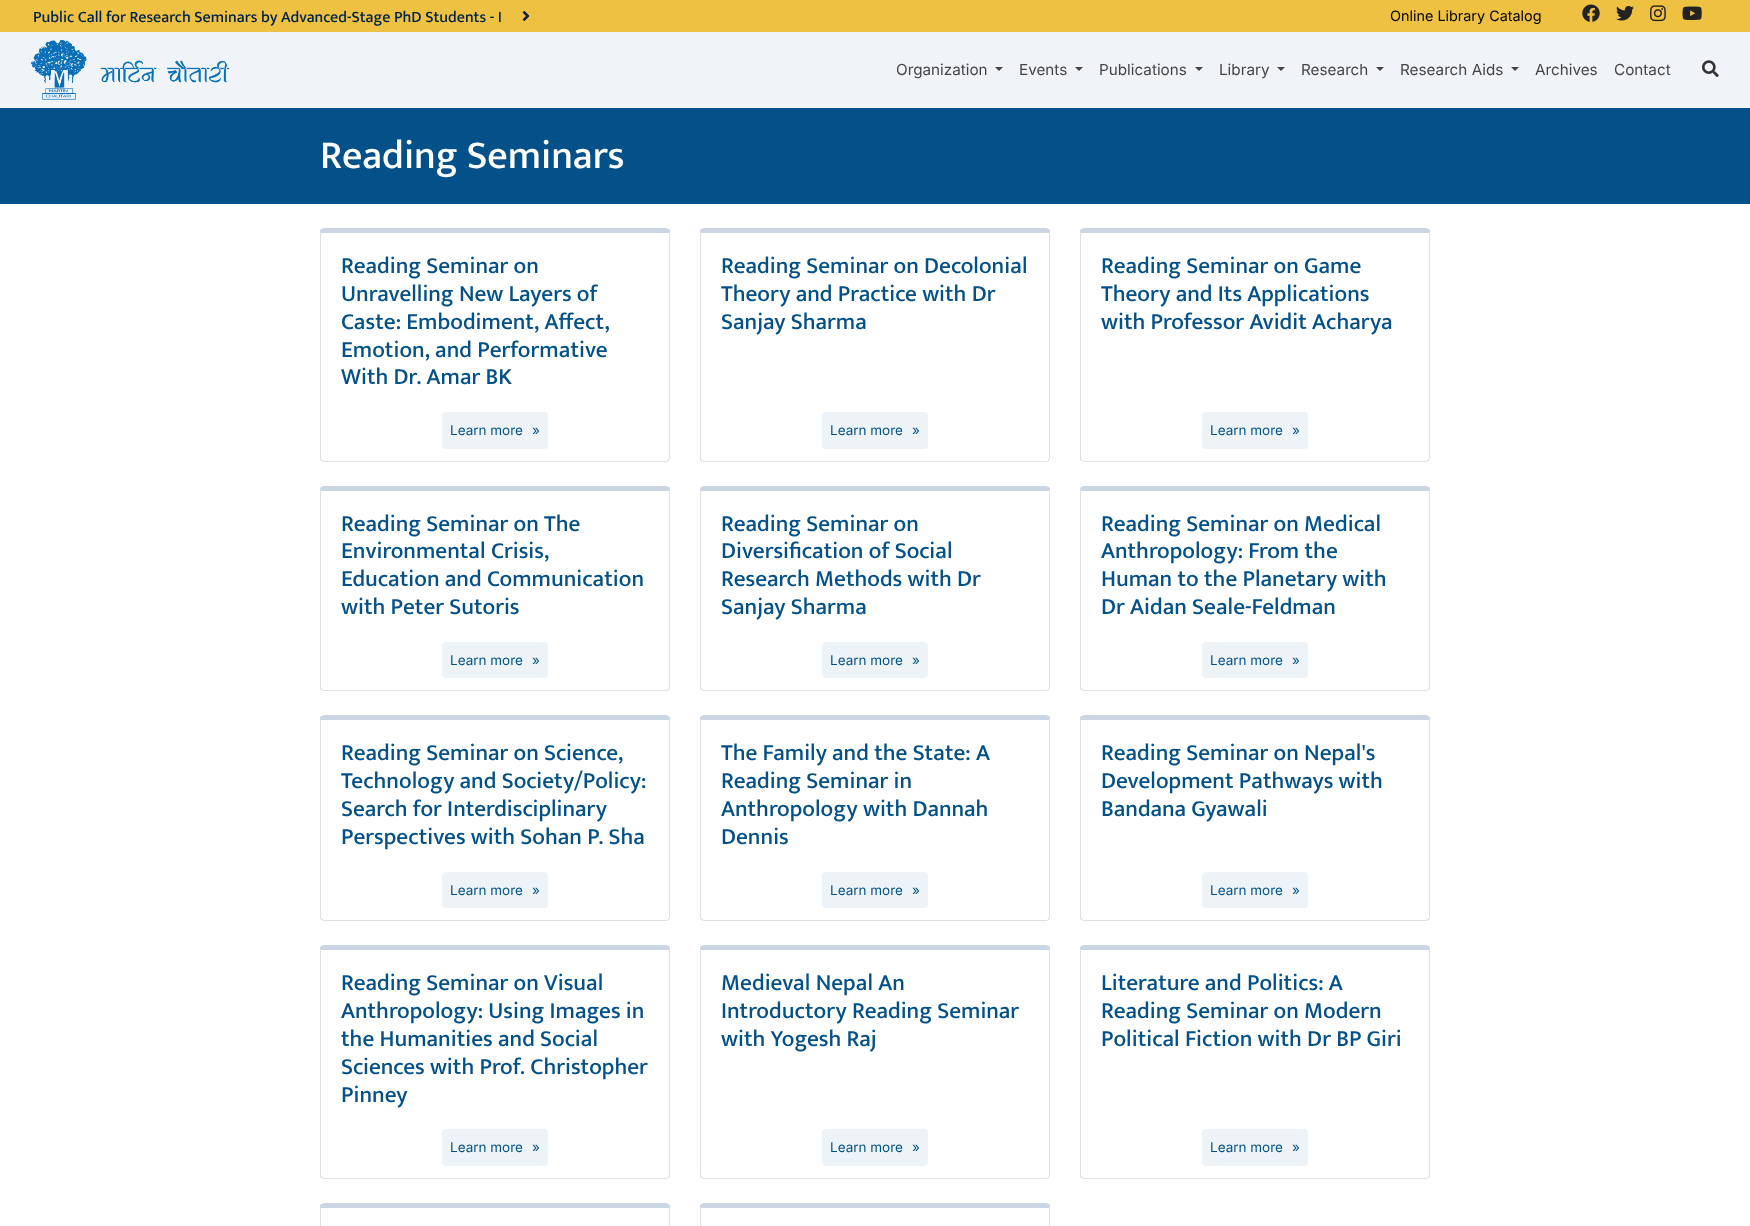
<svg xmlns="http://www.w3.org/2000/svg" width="1750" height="1226">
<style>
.a{font:500 16px Mukta;fill:#002147}
.b{font:14.4px Inter;fill:#000}
.c{font:15.25px Inter;fill:#444}
.d{font:500 40px Mukta;fill:#fff}
.e{font:500 23.25px Mukta;fill:#045189}
.f{font:13.5px Inter;fill:#045189}
</style>
<rect width="100%" height="100%" fill="#fff"/>
<path fill="#f0f4f9" d="M0 32h1750v76H0z"/>
<path fill="#efc142" d="M0 0h1750v32H0z"/>
<image href="1.png" x="522" y="11" width="8" height="10"/>
<image href="2.png" x="1582" y="4" width="18" height="18"/>
<image href="3.png" x="1616" y="5" width="18" height="16"/>
<image href="4.png" x="1650" y="5" width="16" height="17"/>
<image href="5.png" x="1682" y="6" width="20" height="14"/>
<image href="6.png" x="31" y="40" width="199" height="60"/>
<path fill="#444" d="M995 67h8l-4 4z"/>
<path fill="#444" d="M1075 67h8l-4 4z"/>
<path fill="#444" d="M1195 67h8l-4 4z"/>
<path fill="#444" d="M1277 67h8l-4 4z"/>
<path fill="#444" d="M1376 67h8l-4 4z"/>
<path fill="#444" d="M1511 67h8l-4 4z"/>
<image href="7.png" x="1702" y="60" width="17" height="17"/>
<path fill="#045189" d="M0 108h1750v96H0z"/>
<path fill="#ccd6e2" d="M324 228c-1 0-3 1-4 2l1 3h348l1-3c-1-1-3-2-4-2z"/>
<path fill="#0000001f" d="M670 458v-226v-2l-1 3v225l-1 2l1 1z"/>
<path fill="#0000001f" d="M324 462h342l3-1l-1-1l-1 1h-343l-2-1l-1 1z"/>
<path fill="#0000001f" d="M320 232v226c0 1 0 2 1 3l1-1l-1-2v-225l-1-3z"/>
<rect fill="#edf3f7" x="442" y="412" width="106" height="37" rx="4"/>
<path fill="#ccd6e2" d="M704 228c-1 0-3 1-4 2l1 3h348l1-3c-1-1-3-2-4-2z"/>
<path fill="#0000001f" d="M1050 458v-226v-2l-1 3v225l-1 2l1 1z"/>
<path fill="#0000001f" d="M704 462h342l3-1l-1-1l-1 1h-343l-2-1l-1 1z"/>
<path fill="#0000001f" d="M700 232v226c0 1 0 2 1 3l1-1l-1-2v-225l-1-3z"/>
<rect fill="#edf3f7" x="822" y="412" width="106" height="37" rx="4"/>
<path fill="#ccd6e2" d="M1084 228c-1 0-3 1-4 2l1 3h348l1-3c-1-1-3-2-4-2z"/>
<path fill="#0000001f" d="M1430 458v-226v-2l-1 3v225l-1 2l1 1z"/>
<path fill="#0000001f" d="M1084 462h342l3-1l-1-1l-2 1h-343l-1-1l-1 1z"/>
<path fill="#0000001f" d="M1080 232v226c0 1 0 2 1 3l1-1l-1-2v-225l-1-3z"/>
<rect fill="#edf3f7" x="1202" y="412" width="106" height="37" rx="4"/>
<path fill="#ccd6e2" d="M324 486c-1 0-3 1-4 2l1 3h348l1-3c-1-1-3-2-4-2z"/>
<path fill="#0000001f" d="M670 687v-197v-2l-1 3v196l-1 2l1 1z"/>
<path fill="#0000001f" d="M324 691h342l3-1l-1-1l-2 1h-343l-1-1l-1 1z"/>
<path fill="#0000001f" d="M320 490v197c0 1 0 2 1 3l1-1l-1-2v-196l-1-3z"/>
<rect fill="#edf3f7" x="442" y="642" width="106" height="36" rx="4"/>
<path fill="#ccd6e2" d="M704 486c-1 0-3 1-4 2l1 3h348l1-3c-1-1-3-2-4-2z"/>
<path fill="#0000001f" d="M1050 687v-197v-2l-1 3v196l-1 2l1 1z"/>
<path fill="#0000001f" d="M704 691h342l3-1l-1-1l-1 1h-343l-2-1l-1 1z"/>
<path fill="#0000001f" d="M700 490v197c0 1 0 2 1 3l1-1l-1-2v-196l-1-3z"/>
<rect fill="#edf3f7" x="822" y="642" width="106" height="36" rx="4"/>
<path fill="#ccd6e2" d="M1084 486c-1 0-3 1-4 2l1 3h348l1-3c-1-1-3-2-4-2z"/>
<path fill="#0000001f" d="M1430 687v-197v-2l-1 3v196l-1 2l1 1z"/>
<path fill="#0000001f" d="M1084 691h342l3-1l-1-1l-1 1h-343l-2-1l-1 1z"/>
<path fill="#0000001f" d="M1080 490v197c0 1 0 2 1 3l1-1l-1-2v-196l-1-3z"/>
<rect fill="#edf3f7" x="1202" y="642" width="106" height="36" rx="4"/>
<path fill="#ccd6e2" d="M324 715c-1 0-3 1-4 2l1 3h348l1-3c-1-1-3-2-4-2z"/>
<path fill="#0000001f" d="M670 917v-198v-2l-1 3v197l-1 2l1 1z"/>
<path fill="#0000001f" d="M324 921h342l3-1l-1-1l-1 1h-343l-2-1l-1 1z"/>
<path fill="#0000001f" d="M320 719v198c0 1 0 2 1 3l1-1l-1-2v-197l-1-3z"/>
<rect fill="#edf3f7" x="442" y="872" width="106" height="36" rx="4"/>
<path fill="#ccd6e2" d="M704 715c-1 0-3 1-4 2l1 3h348l1-3c-1-1-3-2-4-2z"/>
<path fill="#0000001f" d="M1050 917v-198v-2l-1 3v197l-1 2l1 1z"/>
<path fill="#0000001f" d="M704 921h342l3-1l-1-1l-1 1h-343l-2-1l-1 1z"/>
<path fill="#0000001f" d="M700 719v198c0 1 0 2 1 3l1-1l-1-2v-197l-1-3z"/>
<rect fill="#edf3f7" x="822" y="872" width="106" height="36" rx="4"/>
<path fill="#ccd6e2" d="M1084 715c-1 0-3 1-4 2l1 3h348l1-3c-1-1-3-2-4-2z"/>
<path fill="#0000001f" d="M1430 917v-198v-2l-1 3v197l-1 2l1 1z"/>
<path fill="#0000001f" d="M1084 921h342l3-1l-1-1l-2 1h-343l-1-1l-1 1z"/>
<path fill="#0000001f" d="M1080 719v198c0 1 0 2 1 3l1-1l-1-2v-197l-1-3z"/>
<rect fill="#edf3f7" x="1202" y="872" width="106" height="36" rx="4"/>
<path fill="#ccd6e2" d="M324 945c-1 0-3 1-4 2l1 3h348l1-3c-1-1-3-2-4-2z"/>
<path fill="#0000001f" d="M670 1175v-226v-2l-1 3v225l-1 2l1 1z"/>
<path fill="#0000001f" d="M324 1179h342l3-1l-1-1l-1 1h-343l-2-1l-1 1z"/>
<path fill="#0000001f" d="M320 949v226c0 1 0 2 1 3l1-1l-1-2v-225l-1-3z"/>
<rect fill="#edf3f7" x="442" y="1129" width="106" height="37" rx="4"/>
<path fill="#ccd6e2" d="M704 945c-1 0-3 1-4 2l1 3h348l1-3c-1-1-3-2-4-2z"/>
<path fill="#0000001f" d="M1050 1175v-226v-2l-1 3v225l-1 2l1 1z"/>
<path fill="#0000001f" d="M704 1179h342l3-1l-1-1l-1 1h-343l-2-1l-1 1z"/>
<path fill="#0000001f" d="M700 949v226c0 1 0 2 1 3l1-1l-1-2v-225l-1-3z"/>
<rect fill="#edf3f7" x="822" y="1129" width="106" height="37" rx="4"/>
<path fill="#ccd6e2" d="M1084 945c-1 0-3 1-4 2l1 3h348l1-3c-1-1-3-2-4-2z"/>
<path fill="#0000001f" d="M1430 1175v-226v-2l-1 3v225l-1 2l1 1z"/>
<path fill="#0000001f" d="M1084 1179h342l3-1l-1-1l-1 1h-343l-2-1l-1 1z"/>
<path fill="#0000001f" d="M1080 949v226c0 1 0 2 1 3l1-1l-1-2v-225l-1-3z"/>
<rect fill="#edf3f7" x="1202" y="1129" width="106" height="37" rx="4"/>
<path fill="#ccd6e2" d="M324 1203c-1 0-3 1-4 2l1 3h348l1-3c-1-1-3-2-4-2z"/>
<path fill="#0000001f" d="M670 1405v-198v-2l-1 3v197l-1 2l1 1z"/>
<path fill="#0000001f" d="M320 1207v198c0 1 0 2 1 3l1-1l-1-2v-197l-1-3z"/>
<path fill="#ccd6e2" d="M704 1203c-1 0-3 1-4 2l1 3h348l1-3c-1-1-3-2-4-2z"/>
<path fill="#0000001f" d="M1050 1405v-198v-2l-1 3v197l-1 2l1 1z"/>
<path fill="#0000001f" d="M700 1207v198c0 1 0 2 1 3l1-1l-1-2v-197l-1-3z"/>
<text class="a" x="33" y="22">Public Call for Research Seminars by Advanced-Stage PhD Students - I</text>
<text class="b" x="1390" y="21">Online Library Catalog</text>
<text class="c" x="896" y="75">Organization</text>
<text class="c" x="1019" y="75">Events</text>
<text class="c" x="1099" y="75">Publications</text>
<text class="c" x="1219" y="75">Library</text>
<text class="c" x="1301" y="75">Research</text>
<text class="c" x="1400" y="75">Research Aids</text>
<text class="c" x="1535" y="75">Archives</text>
<text class="c" x="1614" y="75">Contact</text>
<text class="d" x="320" y="168">Reading Seminars</text>
<text class="e" x="341" y="273">Reading Seminar on</text>
<text class="e" x="341" y="301">Unravelling New Layers of</text>
<text class="e" x="341" y="329">Caste: Embodiment, Affect,</text>
<text class="e" x="341" y="357">Emotion, and Performative</text>
<text class="e" x="341" y="384">With Dr. Amar BK</text>
<text class="f" x="450" y="435">Learn more</text>
<text class="f" x="532" y="435">»</text>
<text class="e" x="721" y="273">Reading Seminar on Decolonial</text>
<text class="e" x="721" y="301">Theory and Practice with Dr</text>
<text class="e" x="721" y="329">Sanjay Sharma</text>
<text class="f" x="830" y="435">Learn more</text>
<text class="f" x="912" y="435">»</text>
<text class="e" x="1101" y="273">Reading Seminar on Game</text>
<text class="e" x="1101" y="301">Theory and Its Applications</text>
<text class="e" x="1101" y="329">with Professor Avidit Acharya</text>
<text class="f" x="1210" y="435">Learn more</text>
<text class="f" x="1292" y="435">»</text>
<text class="e" x="341" y="531">Reading Seminar on The</text>
<text class="e" x="341" y="558">Environmental Crisis,</text>
<text class="e" x="341" y="586">Education and Communication</text>
<text class="e" x="341" y="614">with Peter Sutoris</text>
<text class="f" x="450" y="665">Learn more</text>
<text class="f" x="532" y="665">»</text>
<text class="e" x="721" y="531">Reading Seminar on</text>
<text class="e" x="721" y="558">Diversification of Social</text>
<text class="e" x="721" y="586">Research Methods with Dr</text>
<text class="e" x="721" y="614">Sanjay Sharma</text>
<text class="f" x="830" y="665">Learn more</text>
<text class="f" x="912" y="665">»</text>
<text class="e" x="1101" y="531">Reading Seminar on Medical</text>
<text class="e" x="1101" y="558">Anthropology: From the</text>
<text class="e" x="1101" y="586">Human to the Planetary with</text>
<text class="e" x="1101" y="614">Dr Aidan Seale-Feldman</text>
<text class="f" x="1210" y="665">Learn more</text>
<text class="f" x="1292" y="665">»</text>
<text class="e" x="341" y="760">Reading Seminar on Science,</text>
<text class="e" x="341" y="788">Technology and Society/Policy:</text>
<text class="e" x="341" y="816">Search for Interdisciplinary</text>
<text class="e" x="341" y="844">Perspectives with Sohan P. Sha</text>
<text class="f" x="450" y="895">Learn more</text>
<text class="f" x="532" y="895">»</text>
<text class="e" x="721" y="760">The Family and the State: A</text>
<text class="e" x="721" y="788">Reading Seminar in</text>
<text class="e" x="721" y="816">Anthropology with Dannah</text>
<text class="e" x="721" y="844">Dennis</text>
<text class="f" x="830" y="895">Learn more</text>
<text class="f" x="912" y="895">»</text>
<text class="e" x="1101" y="760">Reading Seminar on Nepal's</text>
<text class="e" x="1101" y="788">Development Pathways with</text>
<text class="e" x="1101" y="816">Bandana Gyawali</text>
<text class="f" x="1210" y="895">Learn more</text>
<text class="f" x="1292" y="895">»</text>
<text class="e" x="341" y="990">Reading Seminar on Visual</text>
<text class="e" x="341" y="1018">Anthropology: Using Images in</text>
<text class="e" x="341" y="1046">the Humanities and Social</text>
<text class="e" x="341" y="1074">Sciences with Prof. Christopher</text>
<text class="e" x="341" y="1102">Pinney</text>
<text class="f" x="450" y="1152">Learn more</text>
<text class="f" x="532" y="1152">»</text>
<text class="e" x="721" y="990">Medieval Nepal An</text>
<text class="e" x="721" y="1018">Introductory Reading Seminar</text>
<text class="e" x="721" y="1046">with Yogesh Raj</text>
<text class="f" x="830" y="1152">Learn more</text>
<text class="f" x="912" y="1152">»</text>
<text class="e" x="1101" y="990">Literature and Politics: A</text>
<text class="e" x="1101" y="1018">Reading Seminar on Modern</text>
<text class="e" x="1101" y="1046">Political Fiction with Dr BP Giri</text>
<text class="f" x="1210" y="1152">Learn more</text>
<text class="f" x="1292" y="1152">»</text>
</svg>
